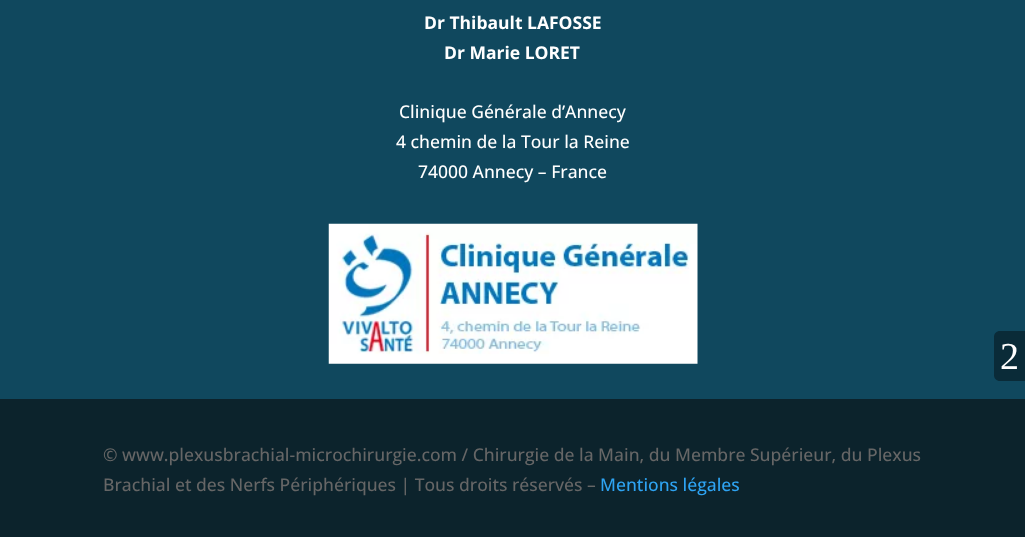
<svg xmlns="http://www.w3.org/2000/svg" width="1025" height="537">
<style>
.a{font:bold 17.5px Open Sans;fill:#fff}
.b{font:500 17.5px Open Sans;fill:#fff}
.c{font:500 17.5px Open Sans;fill:#666}
.d{font:500 17.5px Open Sans;fill:#2ea3f2}
.e{font:38px Liberation Serif;fill:#fff}
</style>
<rect width="100%" height="100%" fill="#10485e"/>
<image href="1.png" x="328" y="223" width="370" height="141"/>
<path fill="#0c232c" d="M0 399h1025v138H0z"/>
<path fill="#0a2b38" d="M1000 331h25v50h-25c-3.5 0-6-2.5-6-6v-38c0-3.5 2.5-6 6-6z"/>
<text class="a" x="424" y="29">Dr Thibault LAFOSSE</text>
<text class="a" x="444" y="59">Dr Marie LORET</text>
<text class="b" x="399" y="118">Clinique Générale d’Annecy</text>
<text class="b" x="396" y="148">4 chemin de la Tour la Reine</text>
<text class="b" x="418" y="178">74000 Annecy – France</text>
<text class="c" x="103" y="461">© www.plexusbrachial-microchirurgie.com / Chirurgie de la Main, du Membre Supérieur, du Plexus</text>
<text class="c" x="103" y="491">Brachial et des Nerfs Périphériques | Tous droits réservés –</text>
<text class="d" x="600" y="491">Mentions légales</text>
<text class="e" x="1000" y="369">2</text>
</svg>
